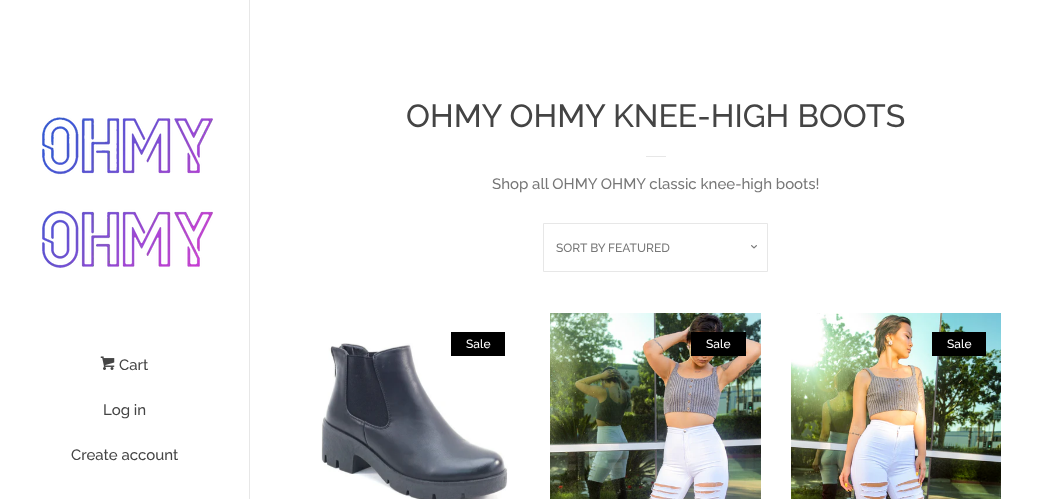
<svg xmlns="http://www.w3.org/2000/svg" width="1061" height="499">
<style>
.a{font:500 32px Raleway;fill:#444}
.b{font:500 15px Raleway;fill:#777}
.c{font:500 12px Raleway;fill:#777}
.d{font:500 12px Raleway;fill:#fff}
.e{font:500 15px Raleway;fill:#444}
</style>
<rect width="100%" height="100%" fill="#fff"/>
<path fill="#e7e7e7" d="M646 156h20v1H646z"/>
<image href="1.png" x="751" y="245" width="6" height="4"/>
<path fill="none" stroke="#e7e7e7" d="M543.5 223.5h224v48H543.5z"/>
<image href="2.png" x="321" y="343" width="187" height="156"/>
<path fill="#000" d="M451 332h54v24H451z"/>
<image href="3.png" x="550" y="313" width="211" height="186"/>
<path fill="#000" d="M691 332h55v24H691z"/>
<image href="4.png" x="791" y="313" width="210" height="186"/>
<path fill="#000" d="M932 332h54v24H932z"/>
<path fill="#e7e7e7" d="M249 0h1v499H249z"/>
<image href="5.png" x="42" y="117" width="171" height="151"/>
<image href="6.png" x="100" y="356" width="15" height="14"/>
<text class="a" x="406" y="127">OHMY OHMY KNEE-HIGH BOOTS</text>
<text class="b" x="492" y="189">Shop all OHMY OHMY classic knee-high boots!</text>
<text class="c" x="556" y="252">SORT BY</text>
<text class="c" x="608" y="252">FEATURED</text>
<text class="d" x="466" y="348">Sale</text>
<text class="d" x="706" y="348">Sale</text>
<text class="d" x="947" y="348">Sale</text>
<text class="e" x="119" y="370">Cart</text>
<text class="e" x="103" y="415">Log in</text>
<text class="e" x="71" y="460">Create account</text>
</svg>
